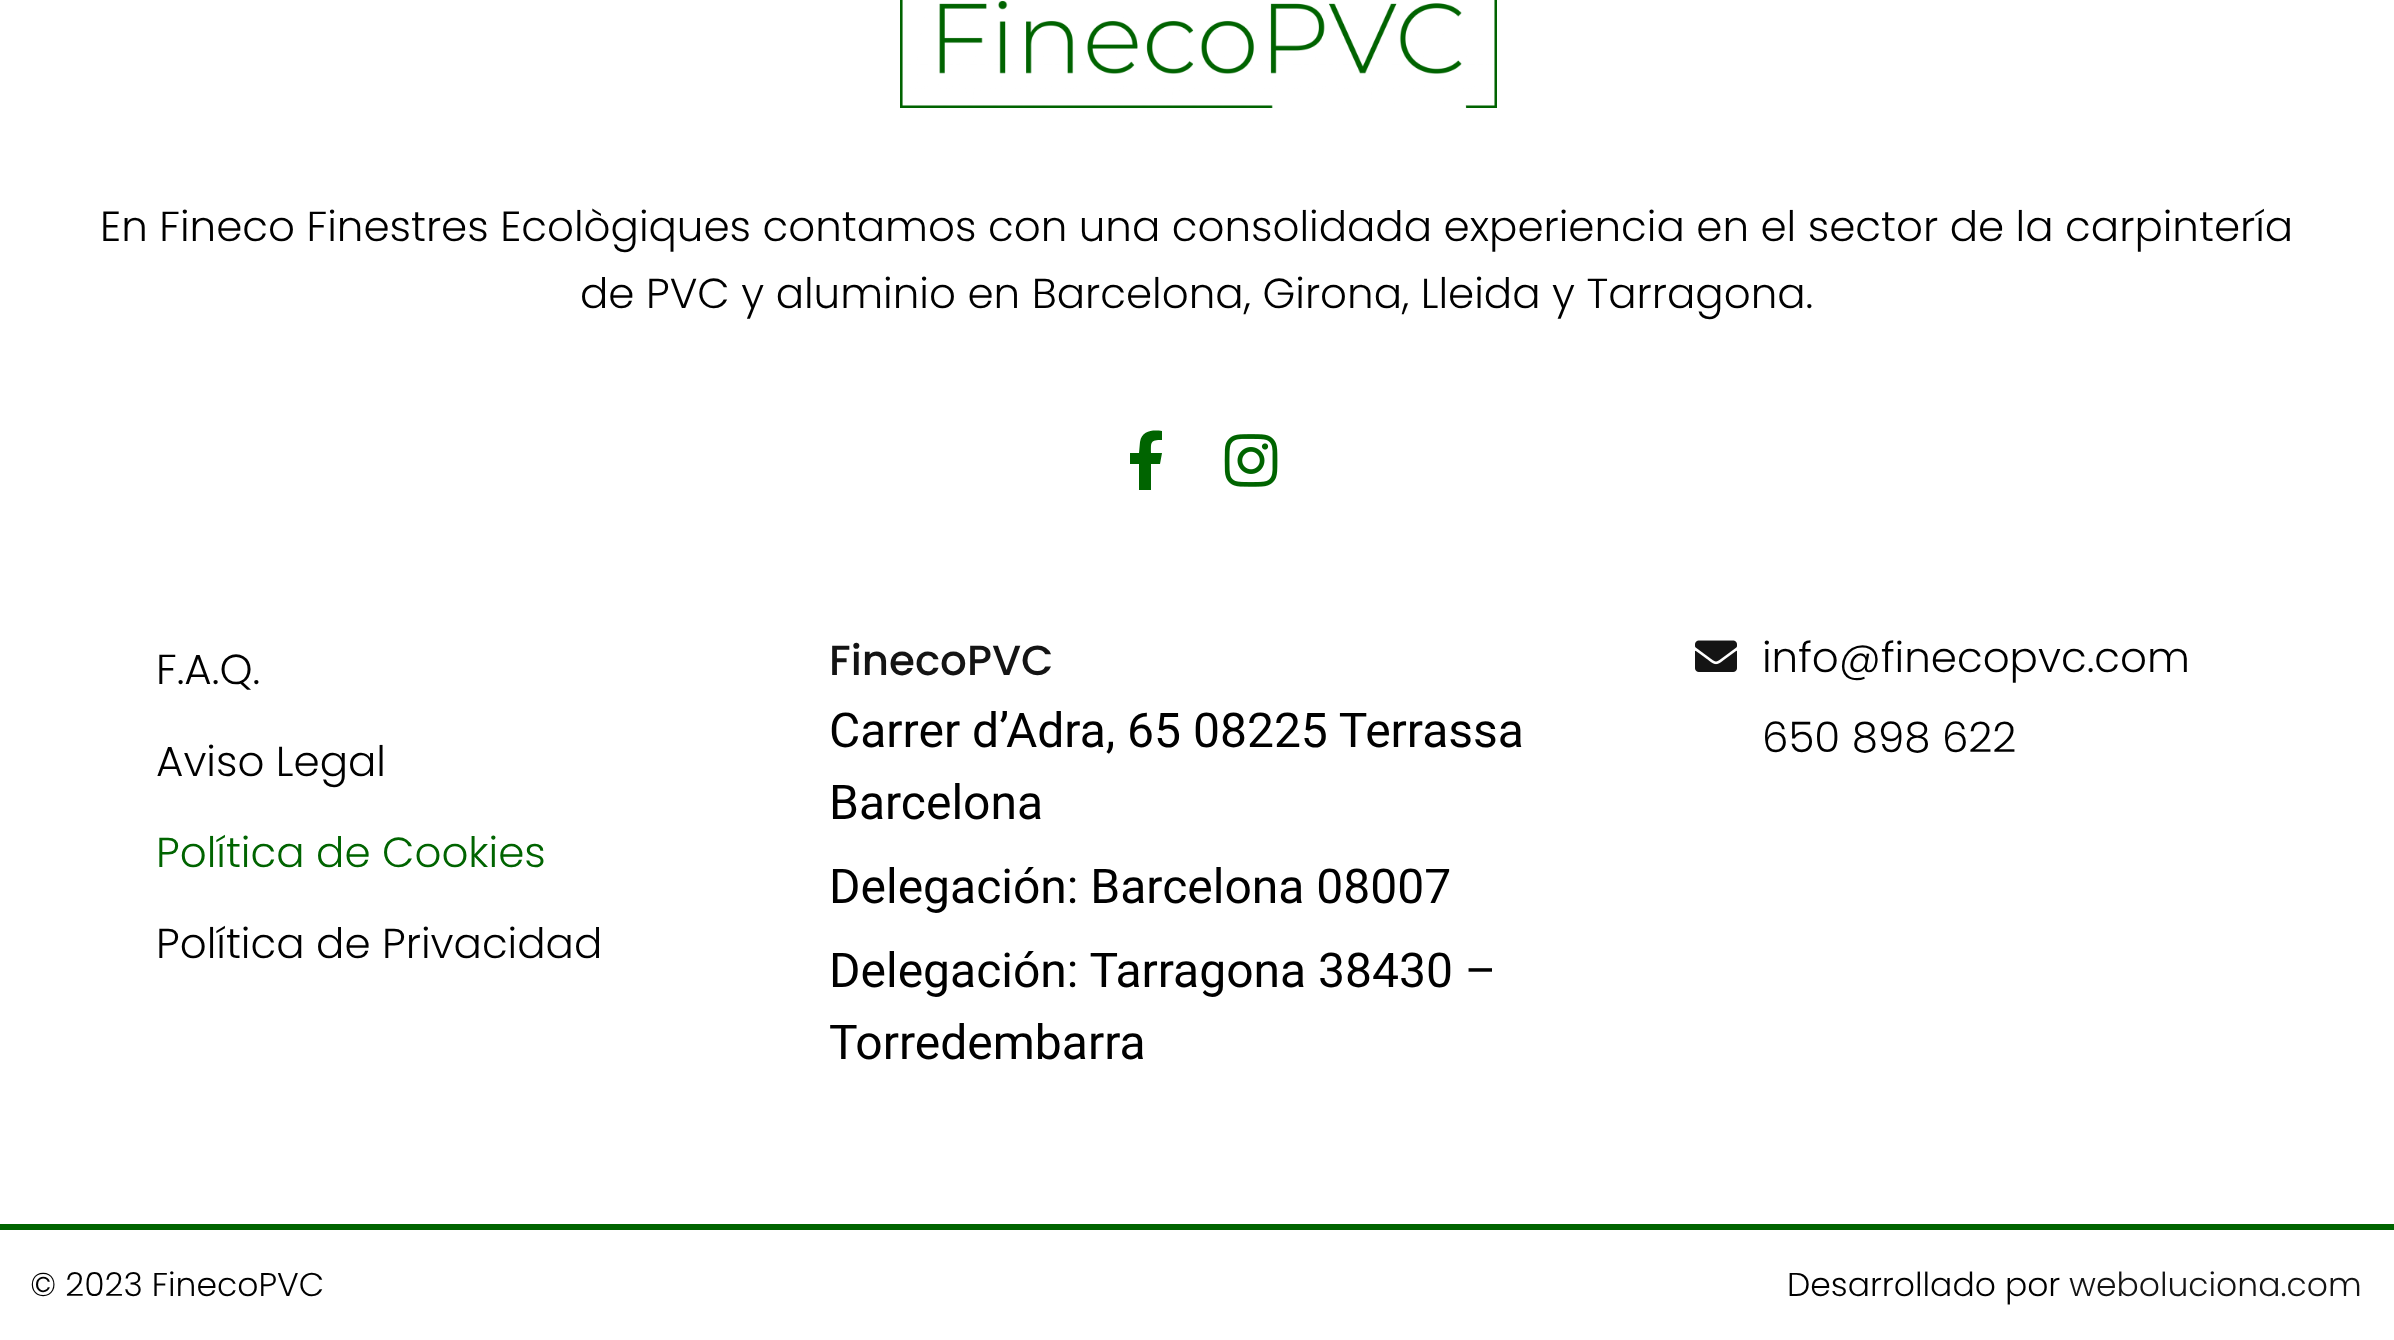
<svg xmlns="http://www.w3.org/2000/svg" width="2394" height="1340">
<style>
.a{font:300 42px Poppins;fill:#000}
.b{font:300 42px Poppins;fill:#006400}
.c{font:500 42px Poppins;fill:#141414}
.d{font:48px Roboto;fill:#000}
.e{font:300 33px Poppins;fill:#000}
.f{font:300 33px Poppins;fill:#141414}
</style>
<rect width="100%" height="100%" fill="#fff"/>
<path fill="#006400" d="M0 1224h2394v6H0z"/>
<image href="1.png" x="900" y="0" width="597" height="108"/>
<path fill="#006400" d="M1160 464h-9v26h-12v-26h-9v-11h9l1-11c2-12 13-12 22-11v9c-12 0-11 2-11 13h11z"/>
<image href="2.png" x="1224" y="434" width="54" height="53"/>
<image href="3.png" x="1695" y="640" width="42" height="32"/>
<text class="a" x="100" y="241">En Fineco Finestres Ecològiques contamos con una consolidada experiencia en el sector de la carpintería</text>
<text class="a" x="580" y="308">de PVC y aluminio en Barcelona, Girona, Lleida y Tarragona.</text>
<text class="a" x="156" y="684">F.A.Q.</text>
<text class="a" x="156" y="776">Aviso Legal</text>
<text class="b" x="156" y="867">Política de Cookies</text>
<text class="a" x="156" y="958">Política de Privacidad</text>
<text class="c" x="829" y="675">FinecoPVC</text>
<text class="d" x="829" y="747">Carrer d’Adra, 65 08225 Terrassa</text>
<text class="d" x="829" y="819">Barcelona</text>
<text class="d" x="829" y="903">Delegación: Barcelona 08007</text>
<text class="d" x="829" y="987">Delegación: Tarragona 38430 –</text>
<text class="d" x="829" y="1059">Torredembarra</text>
<text class="a" x="1762" y="672">info@finecopvc.com</text>
<text class="a" x="1762" y="752">650 898 622</text>
<text class="e" x="30" y="1296">© 2023 FinecoPVC</text>
<text class="e" x="1787" y="1296">Desarrollado por</text>
<text class="f" x="2069" y="1296">weboluciona.com</text>
</svg>
